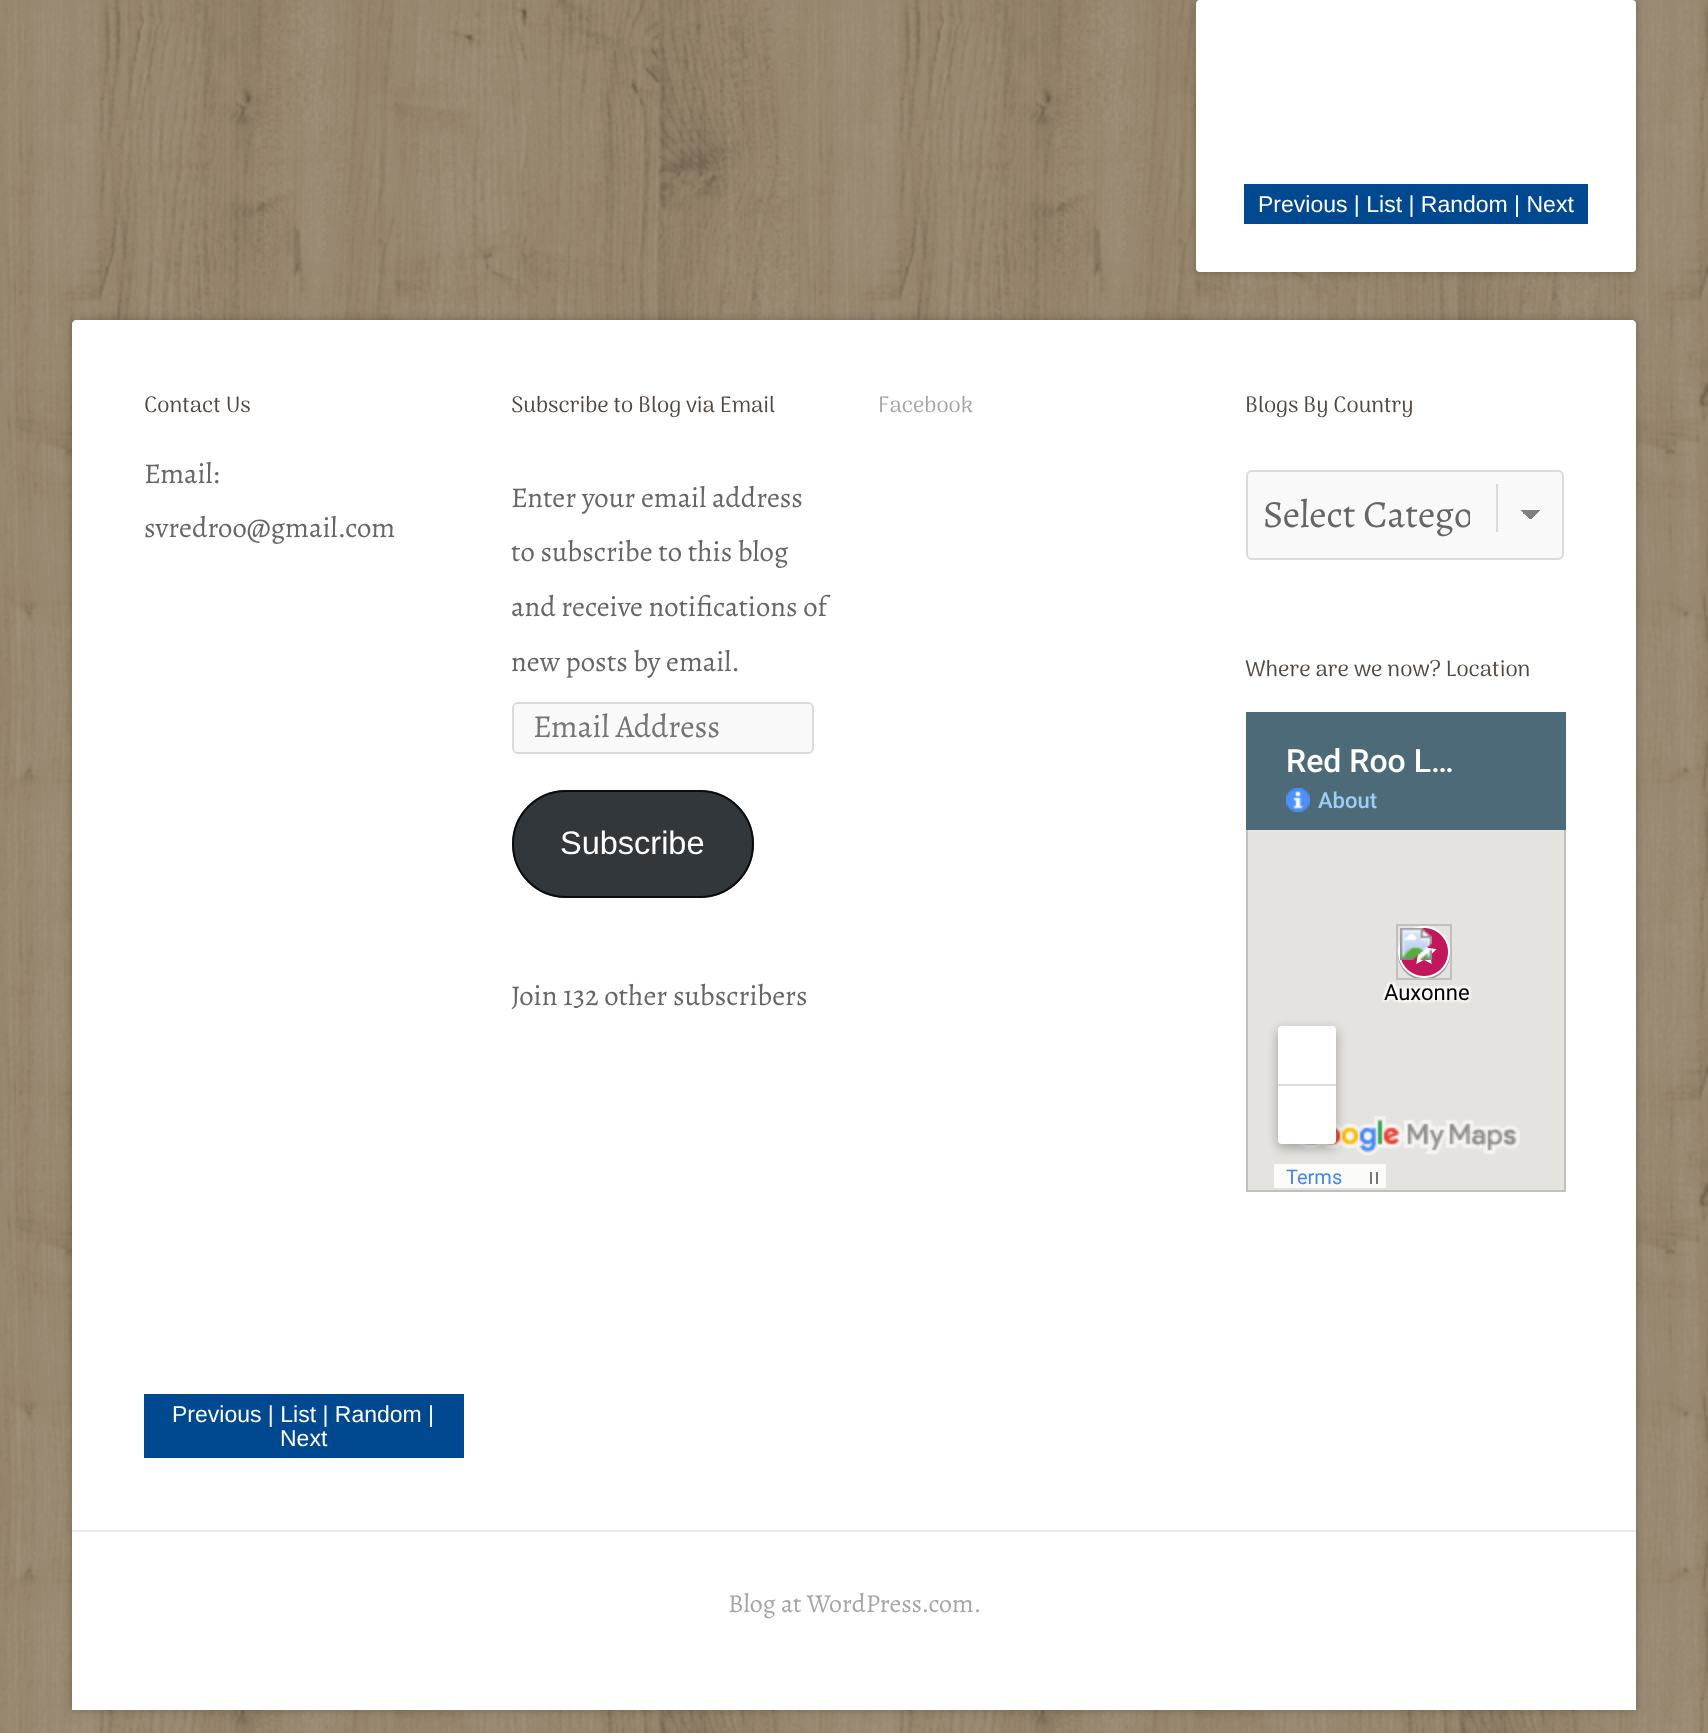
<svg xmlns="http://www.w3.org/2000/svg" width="1708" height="1733">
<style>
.a{font:23px Liberation Sans;fill:#fff}
.b{font:22.25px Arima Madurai;fill:#504741}
.c{font:28.75px Alegreya;fill:#666}
.d{font:32px Alegreya;fill:#757575}
.e{font:32.5px Liberation Sans;fill:#fff}
.f{font:22.25px Arima Madurai;fill:#a6a6a6}
.g{font:38.5px Alegreya;fill:#666}
.h{font:26px Alegreya;fill:#a6a6a6}
</style>
<defs>
<linearGradient id="g1" gradientUnits="userSpaceOnUse" x1="1530" y1="510" x2="1540" y2="520"><stop offset="0.5" stop-color="#808080"/><stop offset="0.5" stop-color="#f9f9f9"/></linearGradient>
<linearGradient id="g2" gradientUnits="userSpaceOnUse" x1="1520" y1="520" x2="1530" y2="510"><stop offset="0.5" stop-color="#f9f9f9"/><stop offset="0.5" stop-color="#808080"/></linearGradient>
<clipPath id="clip1"><path d="M1264 484h206v62H1264z"/></clipPath>
</defs>
<rect width="100%" height="100%" fill="#fff"/>
<image href="1.png" x="0" y="0" width="1708" height="1733"/>
<rect fill="#0000003d" filter="blur(4px)" x="1196" width="440" height="272" rx="4"/>
<rect fill="#fff" x="1196" width="440" height="272" rx="4"/>
<path fill="#004990" d="M1244 184h344v40H1244z"/>
<rect fill="#0000003d" filter="blur(4px)" x="72" y="320" width="1564" height="1390" rx="4"/>
<path fill="#fff" d="M76 320h1556c2 0 4 2 4 4v1386h-1564v-1386c0-2 2-4 4-4z"/>
<path fill="#ebebeb" d="M72 1530h1564v2H72z"/>
<rect fill="#f9f9f9" stroke="#dbdbdb" stroke-width="2" x="513" y="703" width="300" height="50" rx="5"/>
<rect fill="#32373c" x="512" y="790" width="242" height="108" rx="54"/>
<rect fill="none" stroke="#000000cc" stroke-width="2" x="513" y="791" width="240" height="106" rx="53"/>
<rect fill="#f9f9f9" x="1246" y="470" width="318" height="90" rx="6"/>
<path fill="#dbdbdb" d="M1496 484h2v48H1496z"/>
<path fill="url(#g1)" d="M1530 510h10v9H1530z"/>
<path fill="url(#g2)" d="M1520 510h10v9H1520z"/>
<rect fill="none" stroke="#dbdbdb" stroke-width="2" x="1247" y="471" width="316" height="88" rx="5"/>
<image href="2.png" x="1246" y="712" width="320" height="480"/>
<path fill="#004990" d="M144 1394h320v64H144z"/>
<text class="a" x="1258" y="212">Previous | List | Random | Next</text>
<text class="b" x="144" y="412">Contact Us</text>
<text class="c" x="144" y="483">Email:</text>
<text class="c" x="144" y="537">svredroo@gmail.com</text>
<text class="b" x="511" y="412">Subscribe to Blog via Email</text>
<text class="c" x="511" y="507">Enter your email address</text>
<text class="c" x="511" y="561">to subscribe to this blog</text>
<text class="c" x="511" y="616">and receive notifications of</text>
<text class="c" x="511" y="671">new posts by email.</text>
<text class="d" x="533" y="737">Email Address</text>
<text class="e" x="560" y="854">Subscribe</text>
<text class="c" x="511" y="1005">Join 132 other subscribers</text>
<text class="f" x="878" y="412">Facebook</text>
<text class="b" x="1245" y="412">Blogs By Country</text>
<g clip-path="url(#clip1)">
<text class="g" x="1263" y="527">Select Catego</text>
</g>
<text class="b" x="1245" y="676">Where are we now? Location</text>
<text class="a" x="172" y="1422">Previous | List | Random |</text>
<text class="a" x="280" y="1446">Next</text>
<text class="h" x="728" y="1612">Blog at WordPress.com.</text>
</svg>
